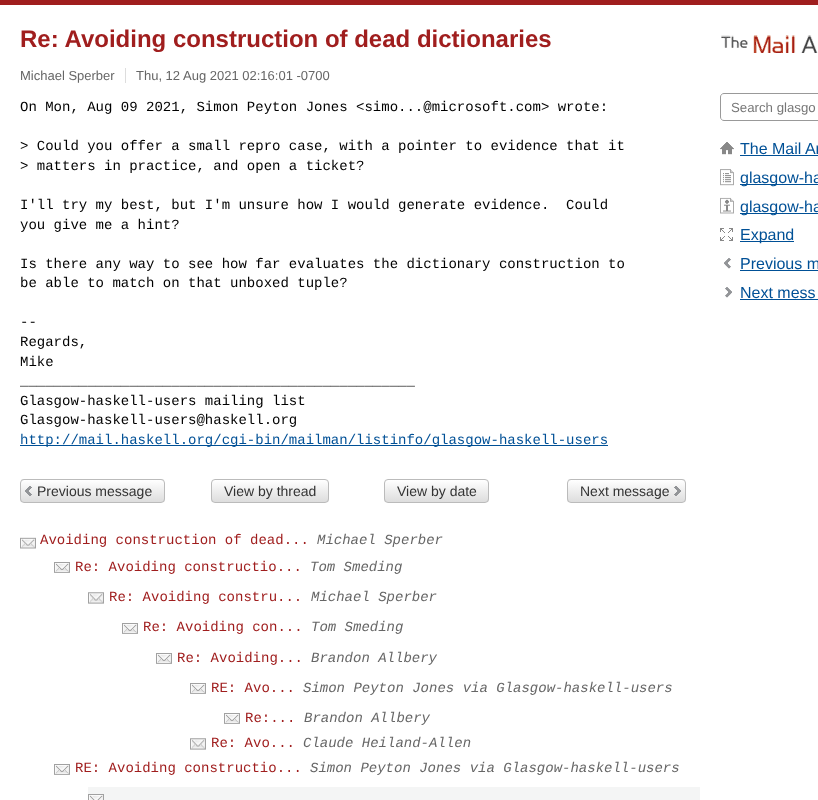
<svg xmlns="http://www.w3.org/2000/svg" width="818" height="800">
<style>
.a{font:bold 24px Liberation Sans;fill:#a01e1e}
.b{font:13px Liberation Sans;fill:#666}
.c{font:14px Liberation Mono;fill:#000}
.d{font:14px Liberation Mono;fill:#005096}
.e{font:14px Liberation Sans;fill:#333}
.f{font:14px Liberation Mono;fill:#a01e1e}
.g{font:italic 14px Liberation Mono;fill:#666}
.h{font:13.25px Liberation Sans;fill:#777}
.i{font:16px Liberation Sans;fill:#005096}
</style>
<defs>
<clipPath id="clip1"><rect x="211" y="479" width="118" height="24" rx="4"/></clipPath>
<linearGradient id="g1" gradientUnits="userSpaceOnUse" x1="270" y1="480" x2="270" y2="502"><stop offset="0" stop-color="#fff"/><stop offset="1" stop-color="#ddd"/></linearGradient>
<clipPath id="clip2"><rect x="384" y="479" width="105" height="24" rx="4"/></clipPath>
<linearGradient id="g2" gradientUnits="userSpaceOnUse" x1="437" y1="480" x2="437" y2="502"><stop offset="0" stop-color="#fff"/><stop offset="1" stop-color="#ddd"/></linearGradient>
</defs>
<rect width="100%" height="100%" fill="#fff"/>
<path fill="#a01e1e" d="M0 0h818v5H0z"/>
<path fill="#ddd" d="M125 68h1v15H125z"/>
<path fill="#005096" d="M20 445h588v1H20z"/>
<image href="1.png" x="20" y="479" width="145" height="24"/>
<rect fill="none" stroke="#bbb" x="20.5" y="479.5" width="144" height="23" rx="3.5"/>
<g clip-path="url(#clip1)">
<path fill="url(#g1)" d="M211 480h118v22H211z"/>
</g>
<rect fill="none" stroke="#bbb" x="211.5" y="479.5" width="117" height="23" rx="3.5"/>
<g clip-path="url(#clip2)">
<path fill="url(#g2)" d="M384 480h105v22H384z"/>
</g>
<rect fill="none" stroke="#bbb" x="384.5" y="479.5" width="104" height="23" rx="3.5"/>
<image href="2.png" x="567" y="479" width="119" height="24"/>
<rect fill="none" stroke="#bbb" x="567.5" y="479.5" width="118" height="23" rx="3.5"/>
<image href="3.png" x="20" y="537" width="16" height="12"/>
<image href="4.png" x="54" y="562" width="16" height="11"/>
<image href="5.png" x="88" y="592" width="16" height="12"/>
<image href="4.png" x="122" y="623" width="16" height="11"/>
<image href="4.png" x="156" y="653" width="16" height="11"/>
<image href="4.png" x="190" y="683" width="16" height="11"/>
<image href="4.png" x="224" y="713" width="16" height="11"/>
<image href="5.png" x="190" y="738" width="16" height="12"/>
<image href="4.png" x="54" y="764" width="16" height="11"/>
<path fill="#f4f5f5" d="M88 787h612v13H88z"/>
<image href="6.png" x="88" y="794" width="16" height="6"/>
<image href="7.png" x="721" y="35" width="97" height="18"/>
<path fill="none" stroke="#999" d="M724 93.5h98.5v27h-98.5c-2 0-3.5-1.5-3.5-3.5v-20c0-2 1.5-3.5 3.5-3.5z"/>
<image href="8.png" x="720" y="142" width="14" height="13"/>
<path fill="#005096" d="M740 155h78v1H740z"/>
<image href="9.png" x="720" y="169" width="14" height="17"/>
<path fill="#005096" d="M740 184h78v1H740z"/>
<image href="10.png" x="720" y="197" width="14" height="17"/>
<path fill="#005096" d="M740 213h78v1H740z"/>
<image href="11.png" x="720" y="228" width="13" height="13"/>
<path fill="#005096" d="M740 241h54v1H740z"/>
<image href="12.png" x="724" y="258" width="7" height="11"/>
<path fill="#005096" d="M740 270h78v1H740z"/>
<image href="13.png" x="725" y="287" width="7" height="11"/>
<path fill="#005096" d="M740 299h78v1H740z"/>
<text class="a" x="20" y="47">Re: Avoiding construction of dead dictionaries</text>
<text class="b" x="20" y="80">Michael Sperber</text>
<text class="b" x="136" y="80">Thu, 12 Aug 2021 02:16:01 -0700</text>
<text class="c" x="20" y="111">On Mon, Aug 09 2021, Simon Peyton Jones &lt;simo...@microsoft.com&gt; wrote:</text>
<text class="c" x="20" y="150">&gt; Could you offer a small repro case, with a pointer to evidence that it</text>
<text class="c" x="20" y="170">&gt; matters in practice, and open a ticket?</text>
<text class="c" xml:space="preserve" x="20" y="209">I'll try my best, but I'm unsure how I would generate evidence.  Could</text>
<text class="c" x="20" y="229">you give me a hint?</text>
<text class="c" x="20" y="268">Is there any way to see how far evaluates the dictionary construction to</text>
<text class="c" x="20" y="287">be able to match on that unboxed tuple?</text>
<text class="c" x="20" y="326">--</text>
<text class="c" x="20" y="346">Regards,</text>
<text class="c" x="20" y="366">Mike</text>
<text class="c" x="20" y="385">_______________________________________________</text>
<text class="c" x="20" y="405">Glasgow-haskell-users mailing list</text>
<text class="c" x="20" y="424">Glasgow-haskell-users@haskell.org</text>
<text class="d" x="20" y="444">http://mail.haskell.org/cgi-bin/mailman/listinfo/glasgow-haskell-users</text>
<text class="e" x="37" y="496">Previous message</text>
<text class="e" x="224" y="496">View by thread</text>
<text class="e" x="397" y="496">View by date</text>
<text class="e" x="580" y="496">Next message</text>
<text class="f" x="40" y="544">Avoiding construction of dead...</text>
<text class="g" x="317" y="544">Michael Sperber</text>
<text class="f" x="75" y="571">Re: Avoiding constructio...</text>
<text class="g" x="310" y="571">Tom Smeding</text>
<text class="f" x="109" y="601">Re: Avoiding constru...</text>
<text class="g" x="311" y="601">Michael Sperber</text>
<text class="f" x="143" y="631">Re: Avoiding con...</text>
<text class="g" x="311" y="631">Tom Smeding</text>
<text class="f" x="177" y="662">Re: Avoiding...</text>
<text class="g" x="311" y="662">Brandon Allbery</text>
<text class="f" x="211" y="692">RE: Avo...</text>
<text class="g" x="303" y="692">Simon Peyton Jones via Glasgow-haskell-users</text>
<text class="f" x="245" y="722">Re:...</text>
<text class="g" x="304" y="722">Brandon Allbery</text>
<text class="f" x="211" y="747">Re: Avo...</text>
<text class="g" x="303" y="747">Claude Heiland-Allen</text>
<text class="f" x="75" y="772">RE: Avoiding constructio...</text>
<text class="g" x="310" y="772">Simon Peyton Jones via Glasgow-haskell-users</text>
<text class="h" x="731" y="112">Search glasgo</text>
<text class="i" x="740" y="154">The Mail Ar</text>
<text class="i" x="740" y="183">glasgow-ha</text>
<text class="i" x="740" y="212">glasgow-ha</text>
<text class="i" x="740" y="240">Expand</text>
<text class="i" x="740" y="269">Previous m</text>
<text class="i" x="740" y="298">Next mess</text>
</svg>
